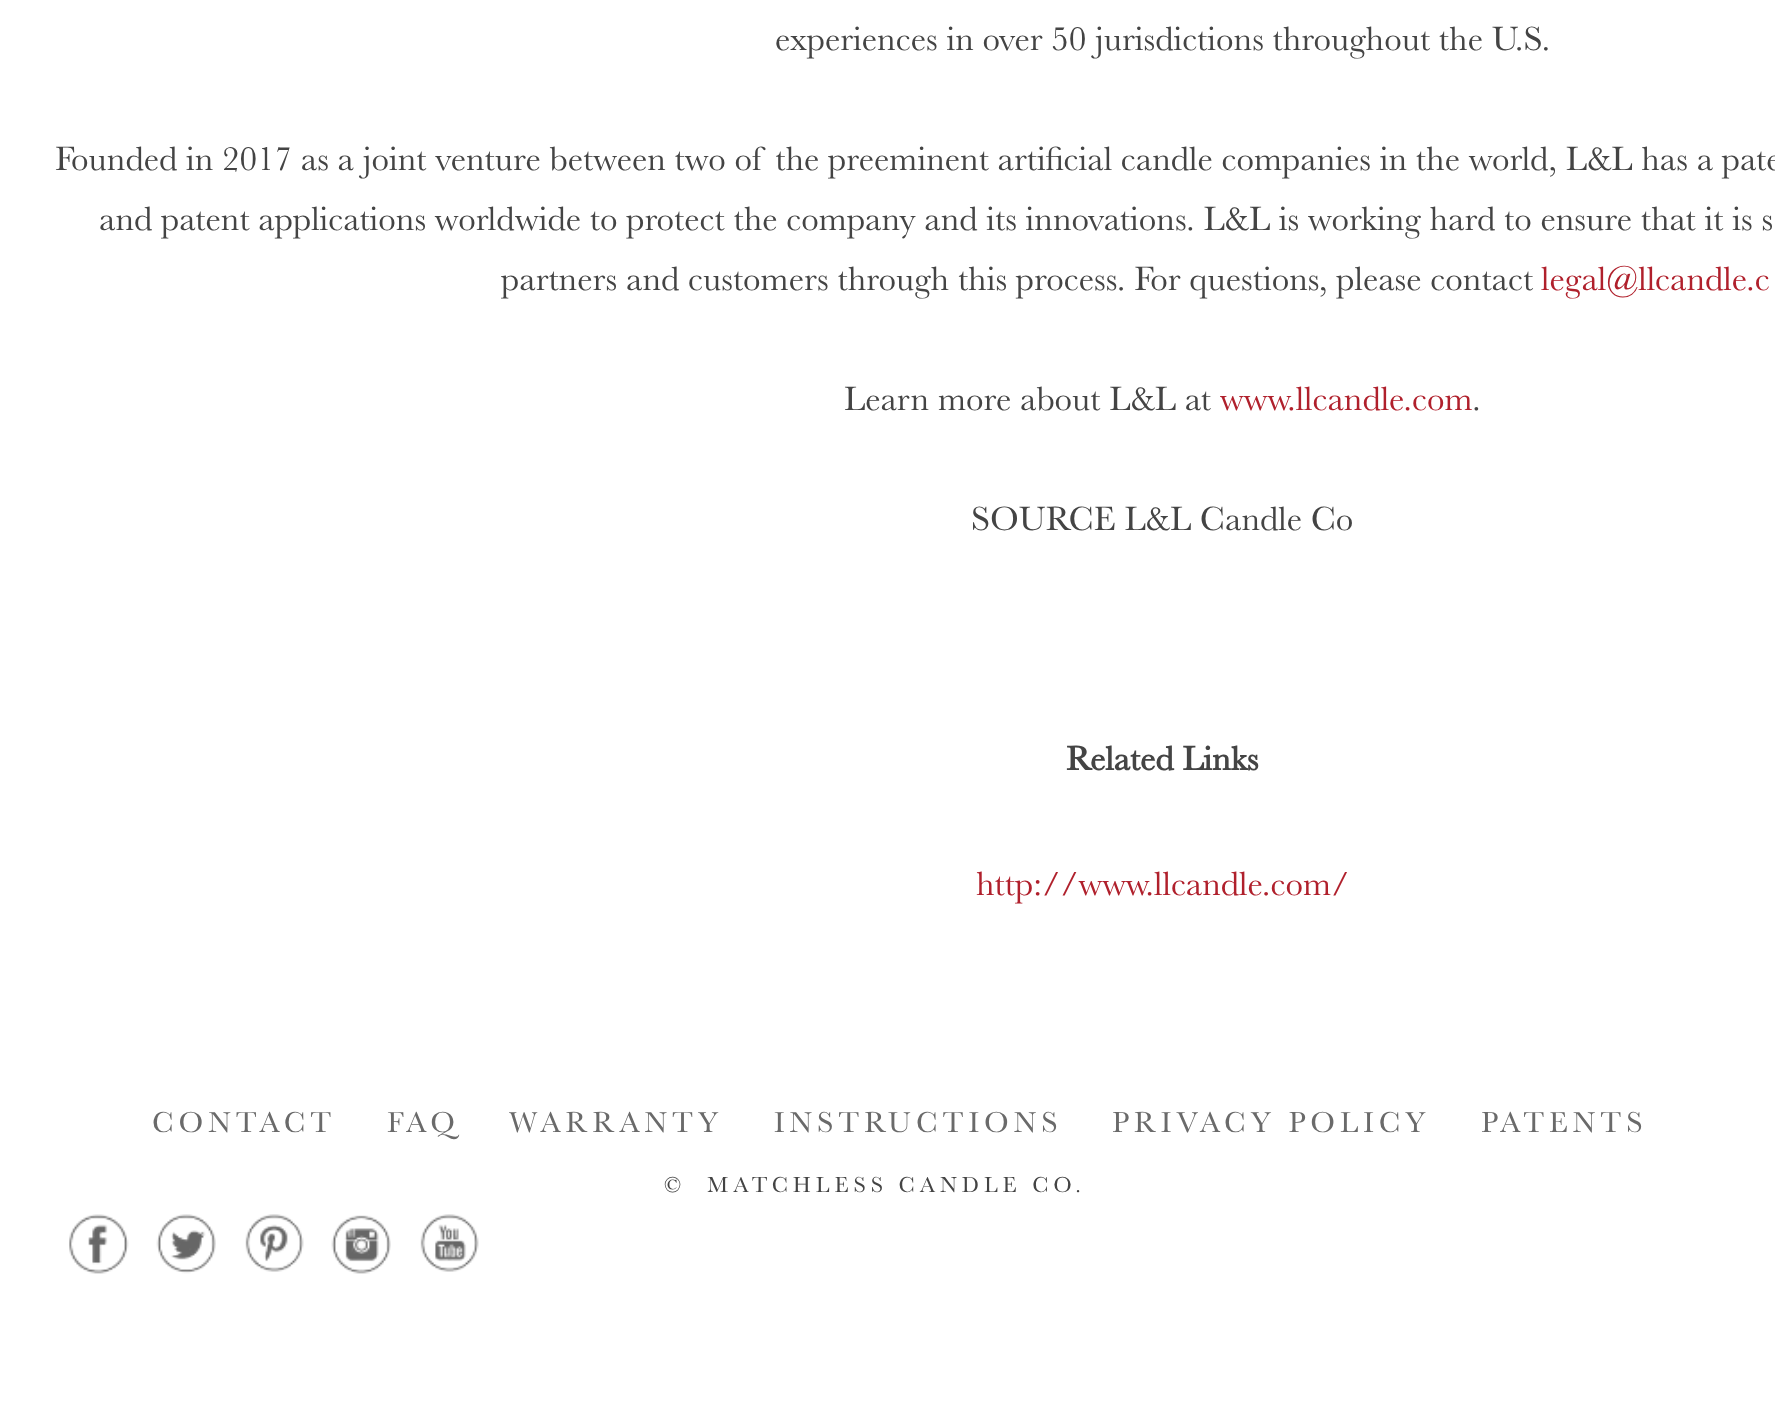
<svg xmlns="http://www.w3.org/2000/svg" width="1775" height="1414">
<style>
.a{font:35px Baskerville;fill:#444}
.b{font:35px Baskerville;fill:#b0202c}
.c{font:bold 35px Baskerville;fill:#444}
.d{font:30px Baskerville;letter-spacing:5px;fill:#6a6a6a}
.e{font:22.5px Baskerville;letter-spacing:5px;fill:#444}
</style>
<rect width="100%" height="100%" fill="#fff"/>
<image href="1.png" x="69" y="1214" width="60" height="60"/>
<image href="2.png" x="156" y="1214" width="60" height="60"/>
<image href="3.png" x="245" y="1214" width="59" height="58"/>
<image href="4.png" x="331" y="1215" width="60" height="59"/>
<image href="5.png" x="420" y="1214" width="59" height="58"/>
<text class="a" x="775" y="50">experiences in over 50 jurisdictions throughout the U.S.</text>
<text class="a" x="55" y="170">Founded in 2017 as a joint venture between two of the preeminent artificial candle companies in the world, L&amp;L has a pate</text>
<text class="a" x="99" y="230">and patent applications worldwide to protect the company and its innovations. L&amp;L is working hard to ensure that it is s</text>
<text class="a" x="501" y="290">partners and customers through this process. For questions, please contact</text>
<text class="b" x="1541" y="290">legal@llcandle.c</text>
<text class="a" x="844" y="410">Learn more about L&amp;L at</text>
<text class="b" x="1220" y="410">www.llcandle.com</text>
<text class="a" x="1472" y="410">.</text>
<text class="a" x="971" y="530">SOURCE L&amp;L Candle Co</text>
<text class="c" x="1066" y="770">Related Links</text>
<text class="b" x="976" y="895">http://www.llcandle.com/</text>
<text class="d" x="152" y="1132">CONTACT</text>
<text class="d" x="387" y="1132">FAQ</text>
<text class="d" x="509" y="1132">WARRANTY</text>
<text class="d" x="774" y="1132">INSTRUCTIONS</text>
<text class="d" x="1112" y="1132">PRIVACY POLICY</text>
<text class="d" x="1481" y="1132">PATENTS</text>
<text class="e" xml:space="preserve" x="664" y="1192">©  MATCHLESS CANDLE CO.</text>
</svg>
